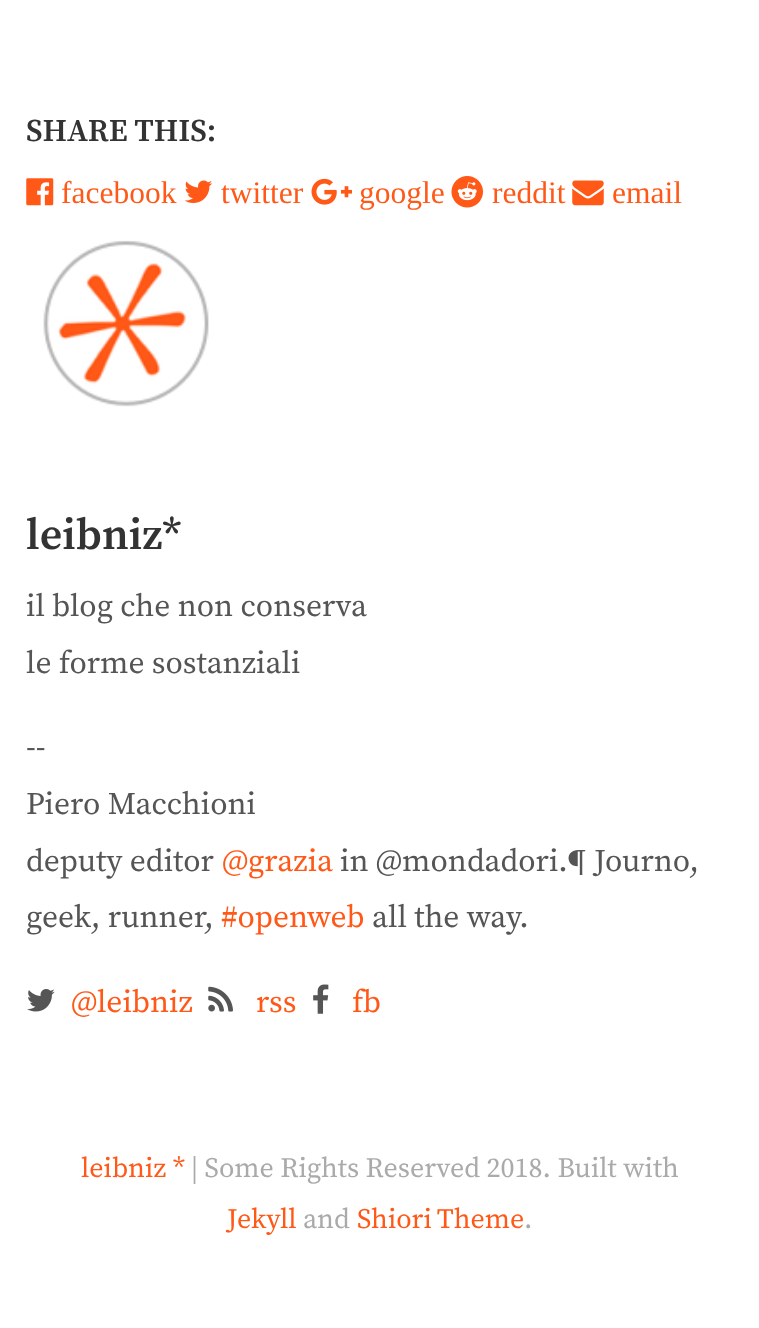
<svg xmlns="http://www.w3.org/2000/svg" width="759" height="1328">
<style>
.a{font:600 31.5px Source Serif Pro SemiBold;fill:#333}
.b{font:31.5px Liberation Serif;fill:#ff5817}
.c{font:600 44px Source Serif Pro SemiBold;fill:#333}
.d{font:31.5px Source Serif Pro;fill:#555}
.e{font:31.5px Source Serif Pro;fill:#ff5817}
.f{font:28px Source Serif Pro;fill:#ff5817}
.g{font:28px Source Serif Pro;fill:#aaa}
</style>
<rect width="100%" height="100%" fill="#fff"/>
<image href="1.png" x="26" y="178" width="28" height="28"/>
<image href="2.png" x="184" y="180" width="29" height="23"/>
<image href="3.png" x="311" y="178" width="41" height="27"/>
<image href="4.png" x="451" y="176" width="32" height="32"/>
<image href="5.png" x="572" y="180" width="32" height="26"/>
<image href="6.png" x="43" y="240" width="166" height="167"/>
<image href="7.png" x="27" y="989" width="28" height="23"/>
<image href="8.png" x="208" y="986" width="25" height="26"/>
<image href="9.png" x="313" y="984" width="16" height="30"/>
<text class="a" x="26" y="141">SHARE THIS:</text>
<text class="b" x="61" y="203">facebook</text>
<text class="b" x="221" y="203">twitter</text>
<text class="b" x="359" y="203">google</text>
<text class="b" x="492" y="203">reddit</text>
<text class="b" x="612" y="203">email</text>
<text class="c" x="26" y="549">leibniz*</text>
<text class="d" x="26" y="616">il blog che non conserva</text>
<text class="d" x="26" y="673">le forme sostanziali</text>
<text class="d" x="26" y="757">--</text>
<text class="d" x="26" y="814">Piero Macchioni</text>
<text class="d" x="26" y="871">deputy editor</text>
<text class="e" x="222" y="871">@grazia</text>
<text class="d" x="340" y="871">in @mondadori.¶ Journo,</text>
<text class="d" x="26" y="927">geek, runner,</text>
<text class="e" x="221" y="927">#openweb</text>
<text class="d" x="372" y="927">all the way.</text>
<text class="e" x="71" y="1012">@leibniz</text>
<text class="e" x="256" y="1012">rss</text>
<text class="e" x="352" y="1012">fb</text>
<text class="f" x="81" y="1177">leibniz *</text>
<text class="g" x="191" y="1177">| Some Rights Reserved 2018. Built with</text>
<text class="f" x="227" y="1228">Jekyll</text>
<text class="g" x="303" y="1228">and</text>
<text class="f" x="357" y="1228" word-spacing="-1">Shiori Theme</text>
<text class="g" x="524" y="1228">.</text>
</svg>
